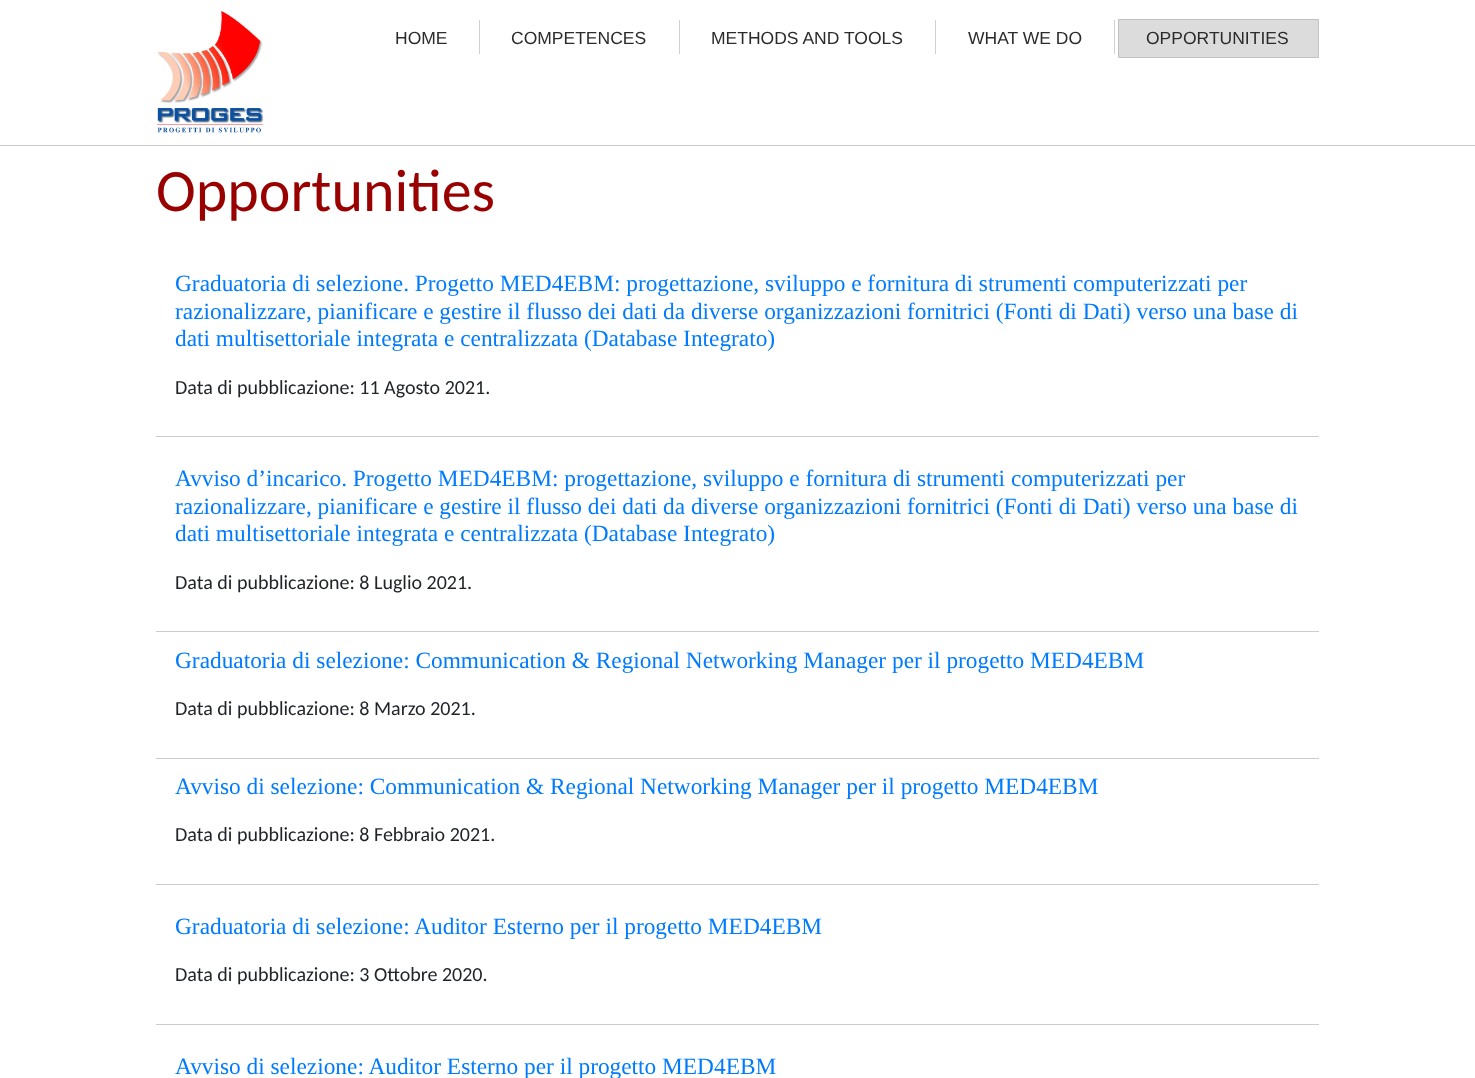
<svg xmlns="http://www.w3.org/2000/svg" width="1475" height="1078">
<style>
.a{font:17.5px Liberation Sans;fill:#2b2b2b}
.b{font:60px Carlito;fill:#900}
.c{font:23.35px Liberation Serif;fill:#007bff}
.d{font:20px Carlito;fill:#212529}
</style>
<rect width="100%" height="100%" fill="#fff"/>
<path fill="#c7c7c7" d="M0 145h1475v1H0z"/>
<image href="1.png" x="157" y="10" width="107" height="123"/>
<path fill="#d1d1d1" d="M479 20h1v34H479z"/>
<path fill="#d1d1d1" d="M679 20h1v34H679z"/>
<path fill="#d1d1d1" d="M935 20h1v34H935z"/>
<path fill="#d1d1d1" d="M1114 20h1v34H1114z"/>
<path fill="#dcdcdc" stroke="#c2c2c2" d="M1118.5 19.5h200v38H1118.5z"/>
<path fill="#ccc" d="M156 436h1163v1H156z"/>
<path fill="#ccc" d="M156 631h1163v1H156z"/>
<path fill="#ccc" d="M156 758h1163v1H156z"/>
<path fill="#ccc" d="M156 884h1163v1H156z"/>
<path fill="#ccc" d="M156 1024h1163v1H156z"/>
<text class="a" x="395" y="44">HOME</text>
<text class="a" x="511" y="44">COMPETENCES</text>
<text class="a" x="711" y="44">METHODS AND TOOLS</text>
<text class="a" x="968" y="44">WHAT WE DO</text>
<text class="a" x="1146" y="44">OPPORTUNITIES</text>
<text class="b" x="156" y="211">Opportunities</text>
<text class="c" x="175" y="291">Graduatoria di selezione. Progetto MED4EBM: progettazione, sviluppo e fornitura di strumenti computerizzati per</text>
<text class="c" x="175" y="319">razionalizzare, pianificare e gestire il flusso dei dati da diverse organizzazioni fornitrici (Fonti di Dati) verso una base di</text>
<text class="c" x="175" y="346">dati multisettoriale integrata e centralizzata (Database Integrato)</text>
<text class="d" x="175" y="394">Data di pubblicazione: 11 Agosto 2021.</text>
<text class="c" x="175" y="486">Avviso d’incarico. Progetto MED4EBM: progettazione, sviluppo e fornitura di strumenti computerizzati per</text>
<text class="c" x="175" y="514">razionalizzare, pianificare e gestire il flusso dei dati da diverse organizzazioni fornitrici (Fonti di Dati) verso una base di</text>
<text class="c" x="175" y="541">dati multisettoriale integrata e centralizzata (Database Integrato)</text>
<text class="d" x="175" y="589">Data di pubblicazione: 8 Luglio 2021.</text>
<text class="c" x="175" y="668">Graduatoria di selezione: Communication &amp; Regional Networking Manager per il progetto MED4EBM</text>
<text class="d" x="175" y="715">Data di pubblicazione: 8 Marzo 2021.</text>
<text class="c" x="175" y="794">Avviso di selezione: Communication &amp; Regional Networking Manager per il progetto MED4EBM</text>
<text class="d" x="175" y="841">Data di pubblicazione: 8 Febbraio 2021.</text>
<text class="c" x="175" y="934">Graduatoria di selezione: Auditor Esterno per il progetto MED4EBM</text>
<text class="d" x="175" y="981">Data di pubblicazione: 3 Ottobre 2020.</text>
<text class="c" x="175" y="1074">Avviso di selezione: Auditor Esterno per il progetto MED4EBM</text>
</svg>
